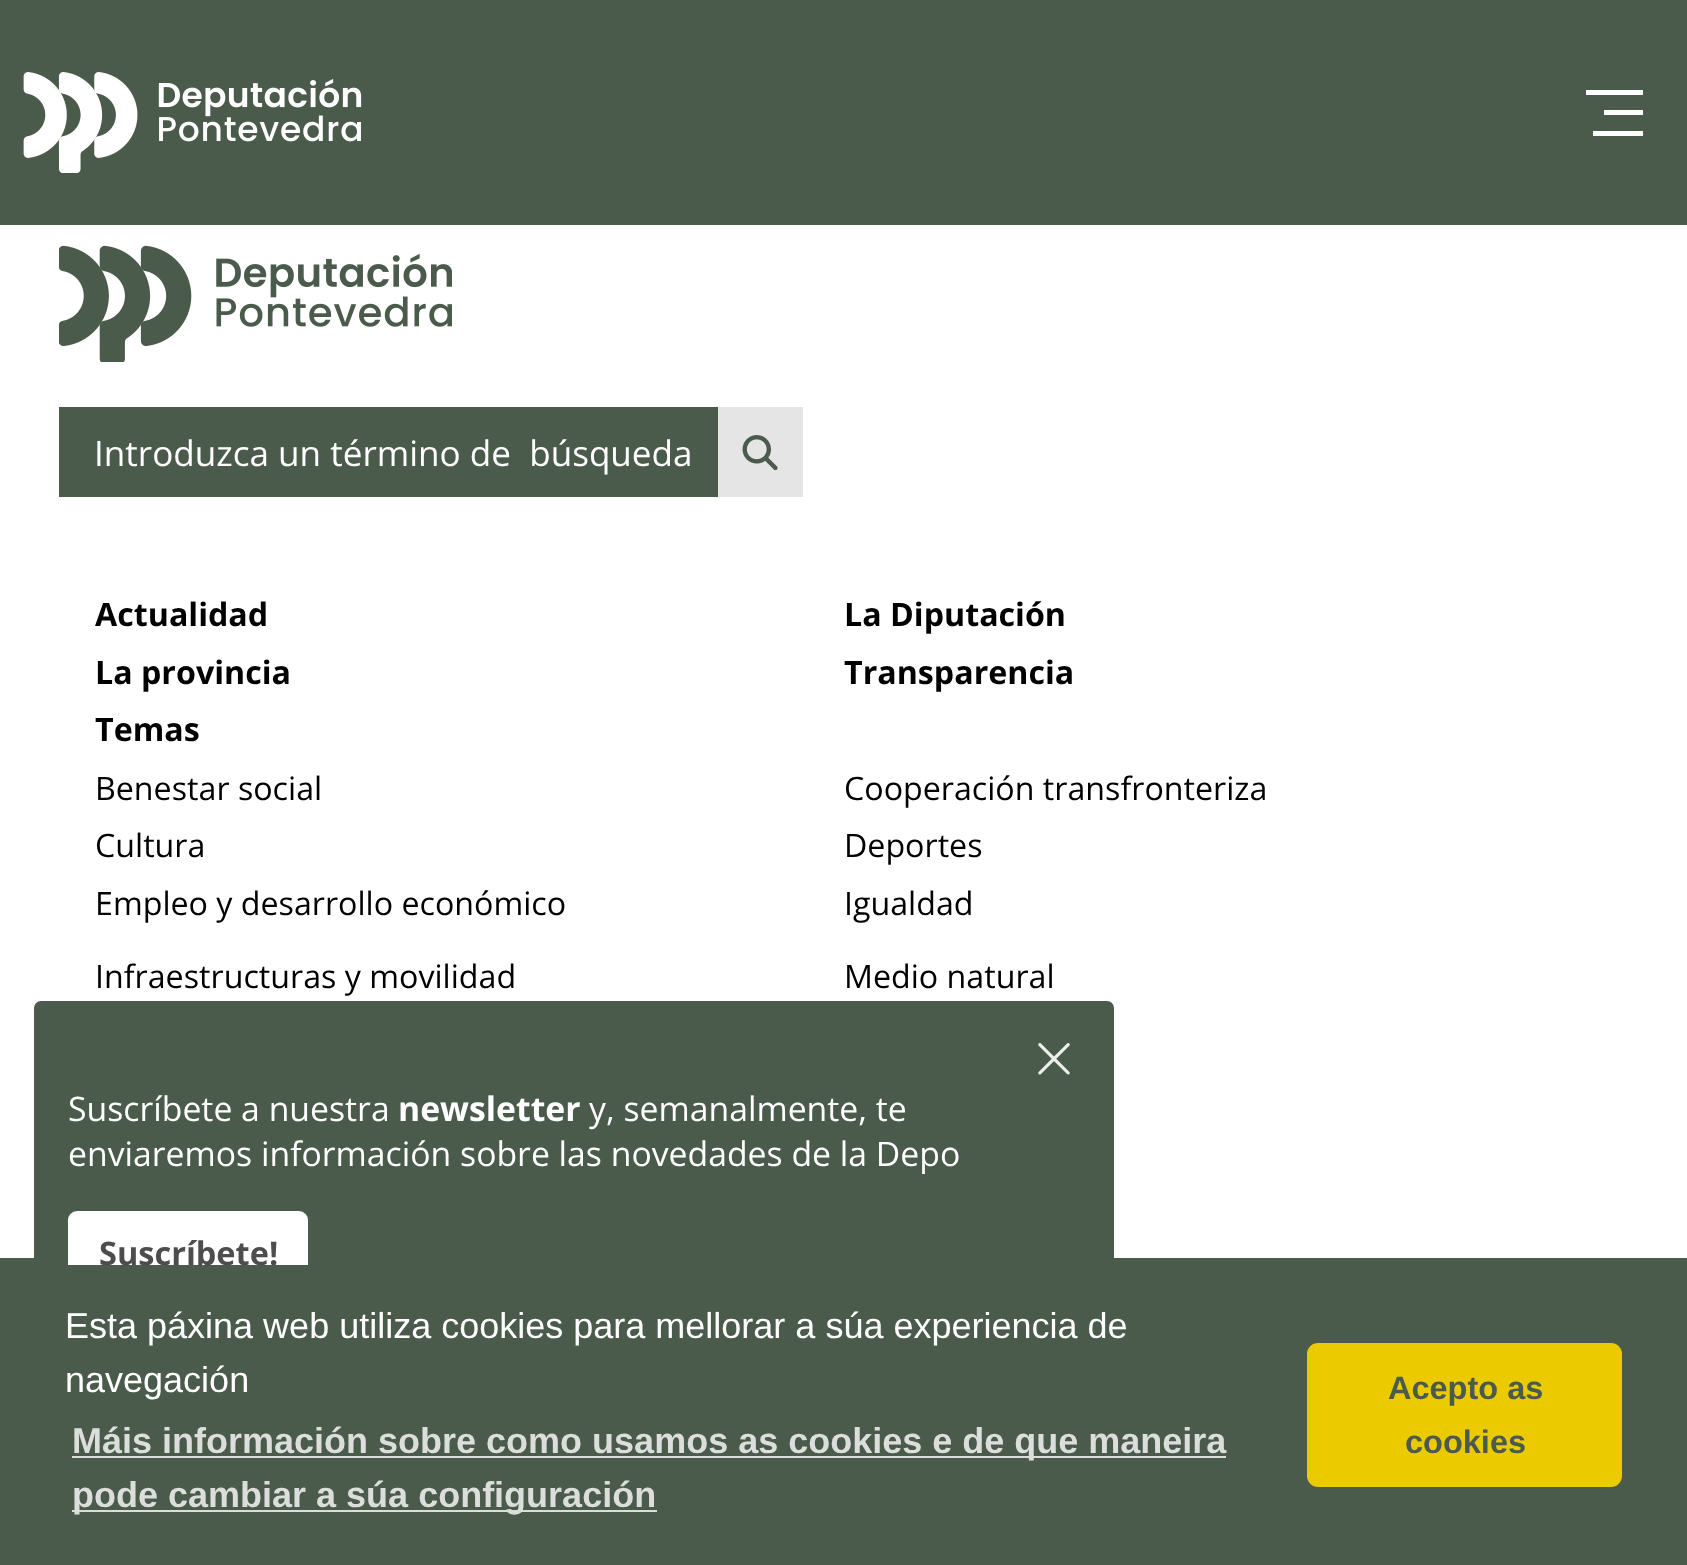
<svg xmlns="http://www.w3.org/2000/svg" width="1687" height="1565">
<style>
.a{font:35.1px Open Sans;fill:#fff}
.b{font:bold 32.2px Open Sans;fill:#000}
.c{font:32.2px Open Sans;fill:#000}
.d{font:33.75px Open Sans;fill:#fff}
.e{font:bold 33.75px Open Sans;fill:#fff}
.f{font:bold 32.5px Open Sans;fill:#4d4d4d}
.g{font:36px Liberation Sans;fill:#fff}
.h{font:bold 36px Liberation Sans;fill:#dbdedb}
.i{font:bold 32.5px Liberation Sans;fill:#4a5a4b}
</style>
<rect width="100%" height="100%" fill="#fff"/>
<path fill="#4a5a4b" d="M0 0h1687v225H0z"/>
<image href="1.png" x="23" y="72" width="339" height="101"/>
<path fill="#fff" d="M1586 90h57v5H1586z"/>
<path fill="#fff" d="M1604 110h39v5H1604z"/>
<path fill="#fff" d="M1593 131h50v5H1593z"/>
<image href="2.png" x="59" y="245" width="393" height="117"/>
<path fill="#4a5a4b" d="M59 407h659v90H59z"/>
<path fill="#e5e5e5" d="M718 407h85v90H718z"/>
<image href="3.png" x="742" y="435" width="36" height="36"/>
<path fill="#4a5a4b" d="M0 1258h1687v7H0z"/>
<rect fill="#4a5a4b" x="34" y="1001" width="1080" height="329" rx="7"/>
<image href="4.png" x="1038" y="1043" width="32" height="32"/>
<rect fill="#fff" x="68" y="1211" width="240" height="85" rx="9"/>
<text class="a" xml:space="preserve" x="94" y="466">Introduzca un término de  búsqueda</text>
<text class="b" x="95" y="626">Actualidad</text>
<text class="b" x="844" y="626">La Diputación</text>
<text class="b" x="95" y="684">La provincia</text>
<text class="b" x="844" y="684">Transparencia</text>
<text class="b" x="95" y="741">Temas</text>
<text class="c" x="95" y="800">Benestar social</text>
<text class="c" x="844" y="800">Cooperación transfronteriza</text>
<text class="c" x="95" y="857">Cultura</text>
<text class="c" x="844" y="857">Deportes</text>
<text class="c" x="95" y="915">Empleo y desarrollo económico</text>
<text class="c" x="844" y="915">Igualdad</text>
<text class="c" x="95" y="988">Infraestructuras y movilidad</text>
<text class="c" x="844" y="988">Medio natural</text>
<text class="d" x="68" y="1121">Suscríbete a nuestra</text>
<text class="e" x="398" y="1121">newsletter</text>
<text class="d" x="589" y="1121">y, semanalmente, te</text>
<text class="d" x="68" y="1166">enviaremos información sobre las novedades de la Depo</text>
<text class="f" x="99" y="1265">Suscríbete!</text>
<path fill="#4a5a4b" d="M0 1265h1687v300H0z"/>
<text class="g" x="65" y="1338">Esta páxina web utiliza cookies para mellorar a súa experiencia de</text>
<text class="g" x="65" y="1392">navegación</text>
<path fill="#dbdedb" d="M72 1456h1154v2H72z"/>
<text class="h" x="72" y="1453">Máis información sobre como usamos as cookies e de que maneira</text>
<path fill="#dbdedb" d="M72 1510h585v2H72z"/>
<text class="h" x="72" y="1507">pode cambiar a súa configuración</text>
<rect fill="#ebcb00" x="1307" y="1343" width="315" height="144" rx="11"/>
<text class="i" x="1388" y="1399">Acepto as</text>
<text class="i" x="1405" y="1453">cookies</text>
</svg>
